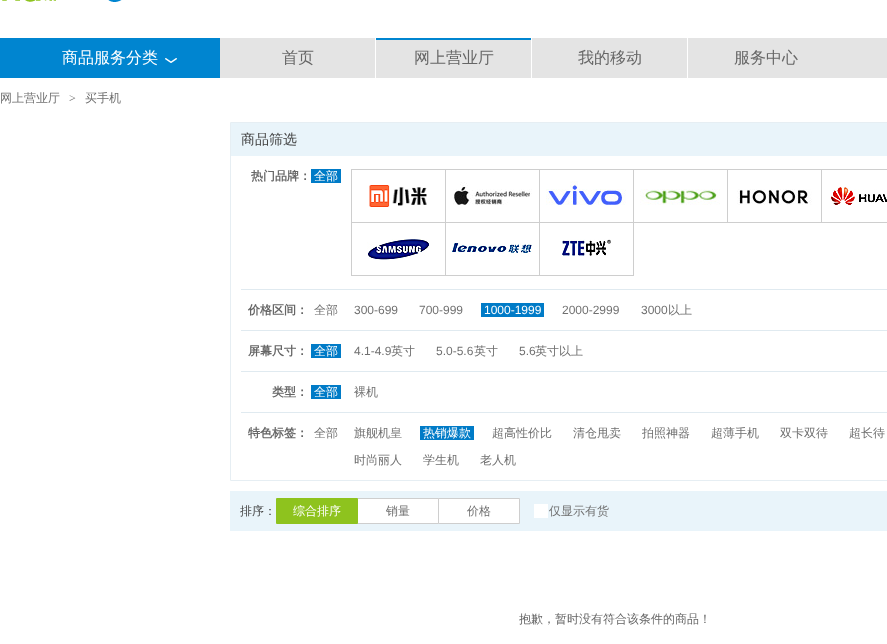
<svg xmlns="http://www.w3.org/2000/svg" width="887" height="644">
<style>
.a{font:500 16px WenQuanYi Zen Hei;fill:#fff}
.b{font:500 16px WenQuanYi Zen Hei;fill:#666}
.c{font:500 12px WenQuanYi Zen Hei;fill:#707070}
.d{font:12px Liberation Serif;fill:#707070}
.e{font:500 14px WenQuanYi Zen Hei;fill:#404040}
.f{font:bold 12px WenQuanYi Zen Hei;fill:#666}
.g{font:500 12px WenQuanYi Zen Hei;fill:#fff}
.h{font:12px Liberation Sans;fill:#707070}
.i{font:12px Liberation Sans;fill:#fff}
.j{font:500 12px WenQuanYi Zen Hei;fill:#404040}
.k{font:500 12px WenQuanYi Zen Hei;fill:#666}
</style>
<rect width="100%" height="100%" fill="#fff"/>
<image href="1.png" x="2" y="0" width="120" height="2"/>
<path fill="#e4e4e4" d="M220 38h667v40H220z"/>
<path fill="#0085d0" d="M0 38h220v40H0z"/>
<image href="2.png" x="165" y="58" width="12" height="5"/>
<path fill="#fff" d="M375 38h1v40H375z"/>
<path fill="#0085d0" d="M376 38h155v2H376z"/>
<path fill="#fff" d="M531 38h1v40H531z"/>
<path fill="#fff" d="M687 38h1v40H687z"/>
<path fill="none" stroke="#e6eef3" d="M230.5 122.5h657v358H230.5z"/>
<path fill="#e9f4fa" d="M231 123h656v33H231z"/>
<path fill="#007bc7" d="M311 169h30v14H311z"/>
<path fill="#cecece" d="M351 169h536v1H351z"/>
<path fill="#cecece" d="M351 169h1v107H351z"/>
<path fill="#cecece" d="M445 170h1v106H445z"/>
<path fill="#cecece" d="M352 222h94v1H352z"/>
<image href="3.png" x="369" y="185" width="58" height="22"/>
<path fill="#cecece" d="M539 170h1v106H539z"/>
<path fill="#cecece" d="M446 222h94v1H446z"/>
<image href="4.png" x="453" y="182" width="79" height="23"/>
<path fill="#cecece" d="M633 170h1v106H633z"/>
<path fill="#cecece" d="M540 222h94v1H540z"/>
<image href="5.png" x="546" y="181" width="80" height="24"/>
<path fill="#cecece" d="M727 170h1v53H727z"/>
<path fill="#cecece" d="M634 222h94v1H634z"/>
<image href="6.png" x="640" y="189" width="80" height="16"/>
<path fill="#cecece" d="M821 170h1v53H821z"/>
<path fill="#cecece" d="M728 222h159v1H728z"/>
<image href="7.png" x="737" y="189" width="75" height="16"/>
<image href="8.png" x="831" y="187" width="56" height="18"/>
<path fill="#cecece" d="M352 275h282v1H352z"/>
<image href="9.png" x="367" y="239" width="62" height="21"/>
<image href="10.png" x="452" y="243" width="80" height="14"/>
<image href="11.png" x="562" y="239" width="49" height="17"/>
<path fill="#e0eaf0" d="M241 289h646v1H241z"/>
<path fill="#007bc7" d="M481 303h63v14H481z"/>
<path fill="#e0eaf0" d="M241 330h646v1H241z"/>
<path fill="#007bc7" d="M311 344h30v14H311z"/>
<path fill="#e0eaf0" d="M241 371h646v1H241z"/>
<path fill="#007bc7" d="M311 385h30v14H311z"/>
<path fill="#e0eaf0" d="M241 412h646v1H241z"/>
<path fill="#007bc7" d="M420 426h54v14H420z"/>
<path fill="#e9f4fa" d="M230 491h657v40H230z"/>
<path fill="#fff" stroke="#cecece" d="M357.5 498.5h81v25H357.5z"/>
<path fill="none" stroke="#8ec31e" d="M276.5 498.5h81v25H276.5z"/>
<path fill="#8ec31e" d="M277 499h80v24H277z"/>
<path fill="#fff" stroke="#cecece" d="M438.5 498.5h81v25H438.5z"/>
<path fill="#fff" d="M534 504h14v14H534z"/>
<text class="a" x="62" y="63">商品服务分类</text>
<text class="b" x="282" y="63">首页</text>
<text class="b" x="414" y="63">网上营业厅</text>
<text class="b" x="578" y="63">我的移动</text>
<text class="b" x="734" y="63">服务中心</text>
<text class="c" x="0" y="102">网上营业厅</text>
<text class="d" x="69" y="102">&gt;</text>
<text class="c" x="85" y="102">买手机</text>
<text class="e" x="241" y="144">商品筛选</text>
<text class="f" x="251" y="180">热门品牌：</text>
<text class="g" x="314" y="180">全部</text>
<text class="f" x="248" y="314">价格区间：</text>
<text class="c" x="314" y="314">全部</text>
<text class="h" x="354" y="314">300-699</text>
<text class="h" x="419" y="314">700-999</text>
<text class="i" x="484" y="314">1000-1999</text>
<text class="h" x="562" y="314">2000-2999</text>
<text class="h" x="641" y="314">3000</text>
<text class="c" x="668" y="314">以上</text>
<text class="f" x="248" y="355">屏幕尺寸：</text>
<text class="g" x="314" y="355">全部</text>
<text class="h" x="354" y="355">4.1-4.9</text>
<text class="c" x="391" y="355">英寸</text>
<text class="h" x="436" y="355">5.0-5.6</text>
<text class="c" x="474" y="355">英寸</text>
<text class="h" x="519" y="355">5.6</text>
<text class="c" x="535" y="355">英寸以上</text>
<text class="f" x="272" y="396">类型：</text>
<text class="g" x="314" y="396">全部</text>
<text class="c" x="354" y="396">裸机</text>
<text class="f" x="248" y="437">特色标签：</text>
<text class="c" x="314" y="437">全部</text>
<text class="c" x="354" y="437">旗舰机皇</text>
<text class="g" x="423" y="437">热销爆款</text>
<text class="c" x="492" y="437">超高性价比</text>
<text class="c" x="573" y="437">清仓甩卖</text>
<text class="c" x="642" y="437">拍照神器</text>
<text class="c" x="711" y="437">超薄手机</text>
<text class="c" x="780" y="437">双卡双待</text>
<text class="c" x="849" y="437">超长待</text>
<text class="c" x="354" y="464">时尚丽人</text>
<text class="c" x="423" y="464">学生机</text>
<text class="c" x="480" y="464">老人机</text>
<text class="j" x="240" y="515">排序：</text>
<text class="g" x="293" y="515">综合排序</text>
<text class="c" x="386" y="515">销量</text>
<text class="c" x="467" y="515">价格</text>
<text class="c" x="549" y="515">仅显示有货</text>
<text class="k" x="519" y="623">抱歉，暂时没有符合该条件的商品！</text>
</svg>
